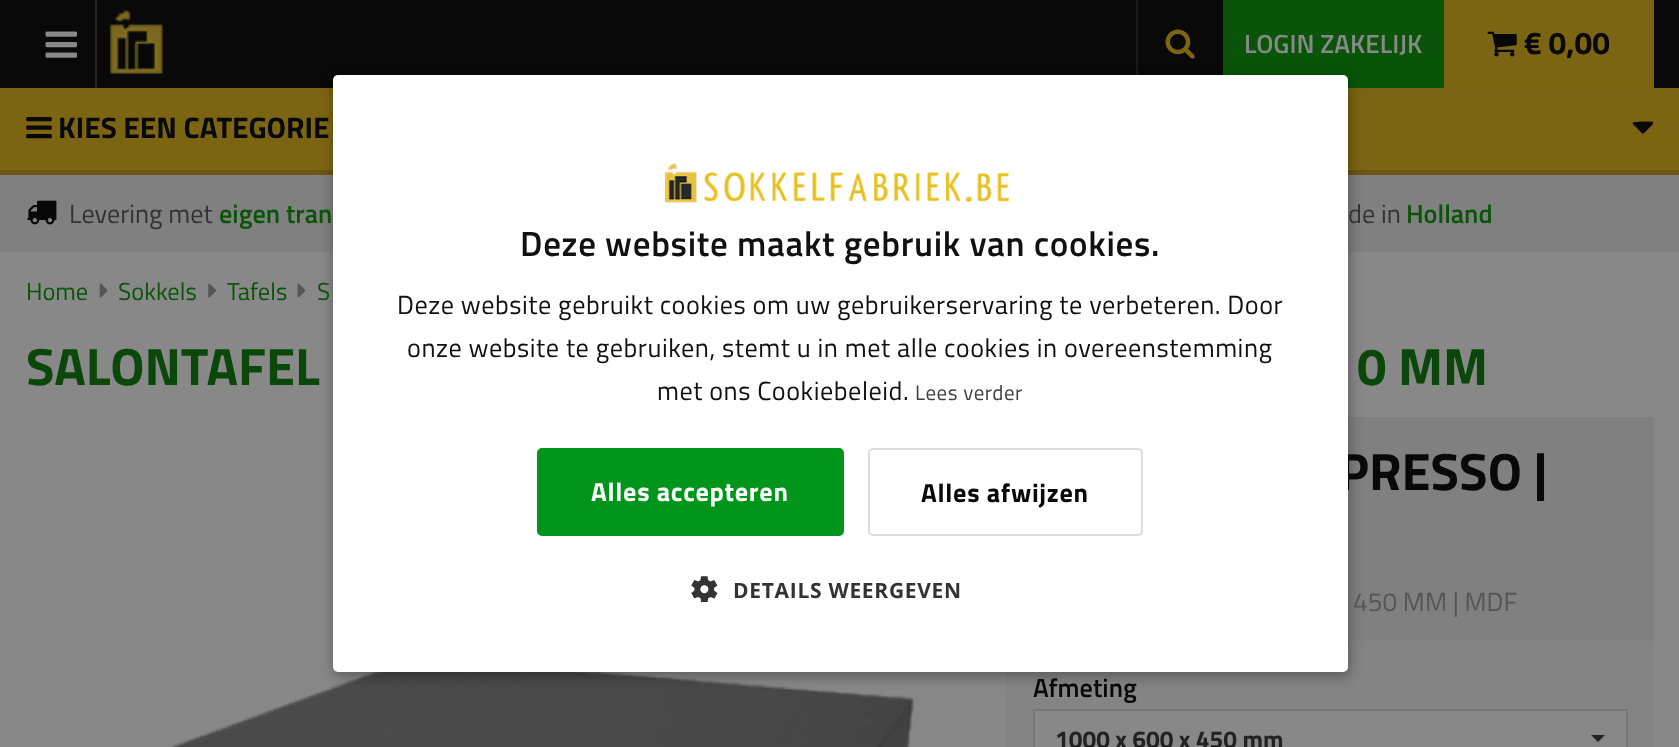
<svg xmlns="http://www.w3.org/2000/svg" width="1679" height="747">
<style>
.a{font:600 26.25px Titillium Web;fill:#888}
.b{font:bold 31.5px Titillium Web;fill:#090909}
.c{font:bold 29.75px Titillium Web;fill:#090909}
.d{font:26.25px Titillium Web;fill:#333}
.e{font:600 26.25px Titillium Web;fill:#095409}
.f{font:24.5px Titillium Web;fill:#095409}
.g{font:bold 52.5px Titillium Web;fill:#0b470b}
.h{font:bold 52.5px Titillium Web;fill:#090909}
.i{font:600 35px Titillium Web;letter-spacing:0.7px;fill:#111}
.j{font:bold 21px Open Sans;letter-spacing:0.7px;fill:#333}
.k{font:bold 26.25px Titillium Web;letter-spacing:0.7px;fill:#090909}
.l{font:bold 26.25px Titillium Web;letter-spacing:0.7px;fill:#fff}
.m{font:21px Titillium Web;letter-spacing:0.53px;fill:#414042}
.n{font:26.25px Titillium Web;letter-spacing:0.53px;fill:#111}
.o{font:26.25px Titillium Web;fill:#555}
.p{font:600 26.25px Titillium Web;fill:#090909}
.q{font:bold 24.5px Titillium Web;fill:#222}
</style>
<rect width="100%" height="100%" fill="#090909"/>
<path fill="#766112" d="M0 88h1679v1H0z"/>
<path fill="#222" d="M95 0h2v88H95z"/>
<image href="1.png" x="45" y="31" width="32" height="27"/>
<image href="2.png" x="110" y="10" width="53" height="64"/>
<path fill="#1a1a1a" d="M1136 0h2v75H1136z"/>
<image href="3.png" x="1165" y="29" width="30" height="30"/>
<path fill="#095409" d="M1223 0h221v88H1223z"/>
<path fill="#7c6512" d="M1444 0h210v88H1444z"/>
<image href="4.png" x="1487" y="31" width="30" height="26"/>
<path fill="#7c6512" d="M0 89h1679v81H0z"/>
<path fill="#6b5711" d="M0 170h1679v5H0z"/>
<image href="5.png" x="26" y="117" width="26" height="22"/>
<image href="6.png" x="1632" y="122" width="22" height="12"/>
<image href="7.png" x="1638" y="121" width="15" height="2"/>
<path fill="#808080" d="M0 175h1679v77H0z"/>
<image href="8.png" x="27" y="200" width="30" height="25"/>
<path fill="#888" d="M0 252h1679v495H0z"/>
<image href="9.png" x="99" y="283" width="9" height="15"/>
<image href="10.png" x="208" y="283" width="8" height="15"/>
<image href="11.png" x="297" y="283" width="9" height="15"/>
<image href="14.png" x="167" y="672" width="748" height="75"/>
<path fill="#808080" d="M1348 417h306v224H1348z"/>
<path fill="#848484" d="M1006 641h648v106H1006z"/>
<rect fill="#00000059" filter="blur(7px)" x="334" y="79" width="1015" height="597" rx="5"/>
<path fill="#888" stroke="#777" stroke-width="2" d="M1034 710h593v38H1034z"/>
<path fill="#222" d="M1591 735h14l-7 7z"/>
<text class="a" x="1244" y="53">LOGIN ZAKELIJK</text>
<text class="b" x="1524" y="54">€ 0,00</text>
<text class="c" x="58" y="138">KIES EEN CATEGORIE</text>
<text class="d" x="69" y="223">Levering met</text>
<text class="e" x="219" y="223">eigen tran</text>
<text class="d" x="1348" y="223">de in</text>
<text class="e" x="1406" y="223">Holland</text>
<text class="f" x="26" y="300">Home</text>
<text class="f" x="118" y="300">Sokkels</text>
<text class="f" x="227" y="300">Tafels</text>
<text class="f" x="317" y="300">S</text>
<text class="g" x="26" y="385">SALONTAFEL</text>
<text class="g" x="1357" y="385">0 MM</text>
<text class="h" x="1338" y="490">PRESSO |</text>
<rect fill="#fff" x="333" y="75" width="1015" height="597" rx="5"/>
<text class="i" x="520" y="256">Deze website maakt gebruik van cookies.</text>
<image href="12.png" x="665" y="163" width="345" height="40"/>
<image href="13.png" x="691" y="576" width="27" height="26"/>
<text class="j" x="733" y="598">DETAILS WEERGEVEN</text>
<rect fill="none" stroke="#ddd" stroke-width="2" x="869" y="449" width="273" height="86" rx="4"/>
<text class="k" x="921" y="502">Alles afwijzen</text>
<rect fill="#01961b" stroke="#01961b" stroke-width="2" x="538" y="449" width="305" height="86" rx="4"/>
<text class="l" x="591" y="501">Alles accepteren</text>
<text class="m" x="915" y="400">Lees verder</text>
<text class="n" x="657" y="400">met ons Cookiebeleid.</text>
<text class="n" x="407" y="357">onze website te gebruiken, stemt u in met alle cookies in overeenstemming</text>
<text class="n" x="397" y="314">Deze website gebruikt cookies om uw gebruikerservaring te verbeteren. Door</text>
<text class="o" x="1353" y="611">450 MM | MDF</text>
<text class="p" x="1033" y="697">Afmeting</text>
<text class="q" x="1055" y="748">1000 x 600 x 450 mm</text>
</svg>
